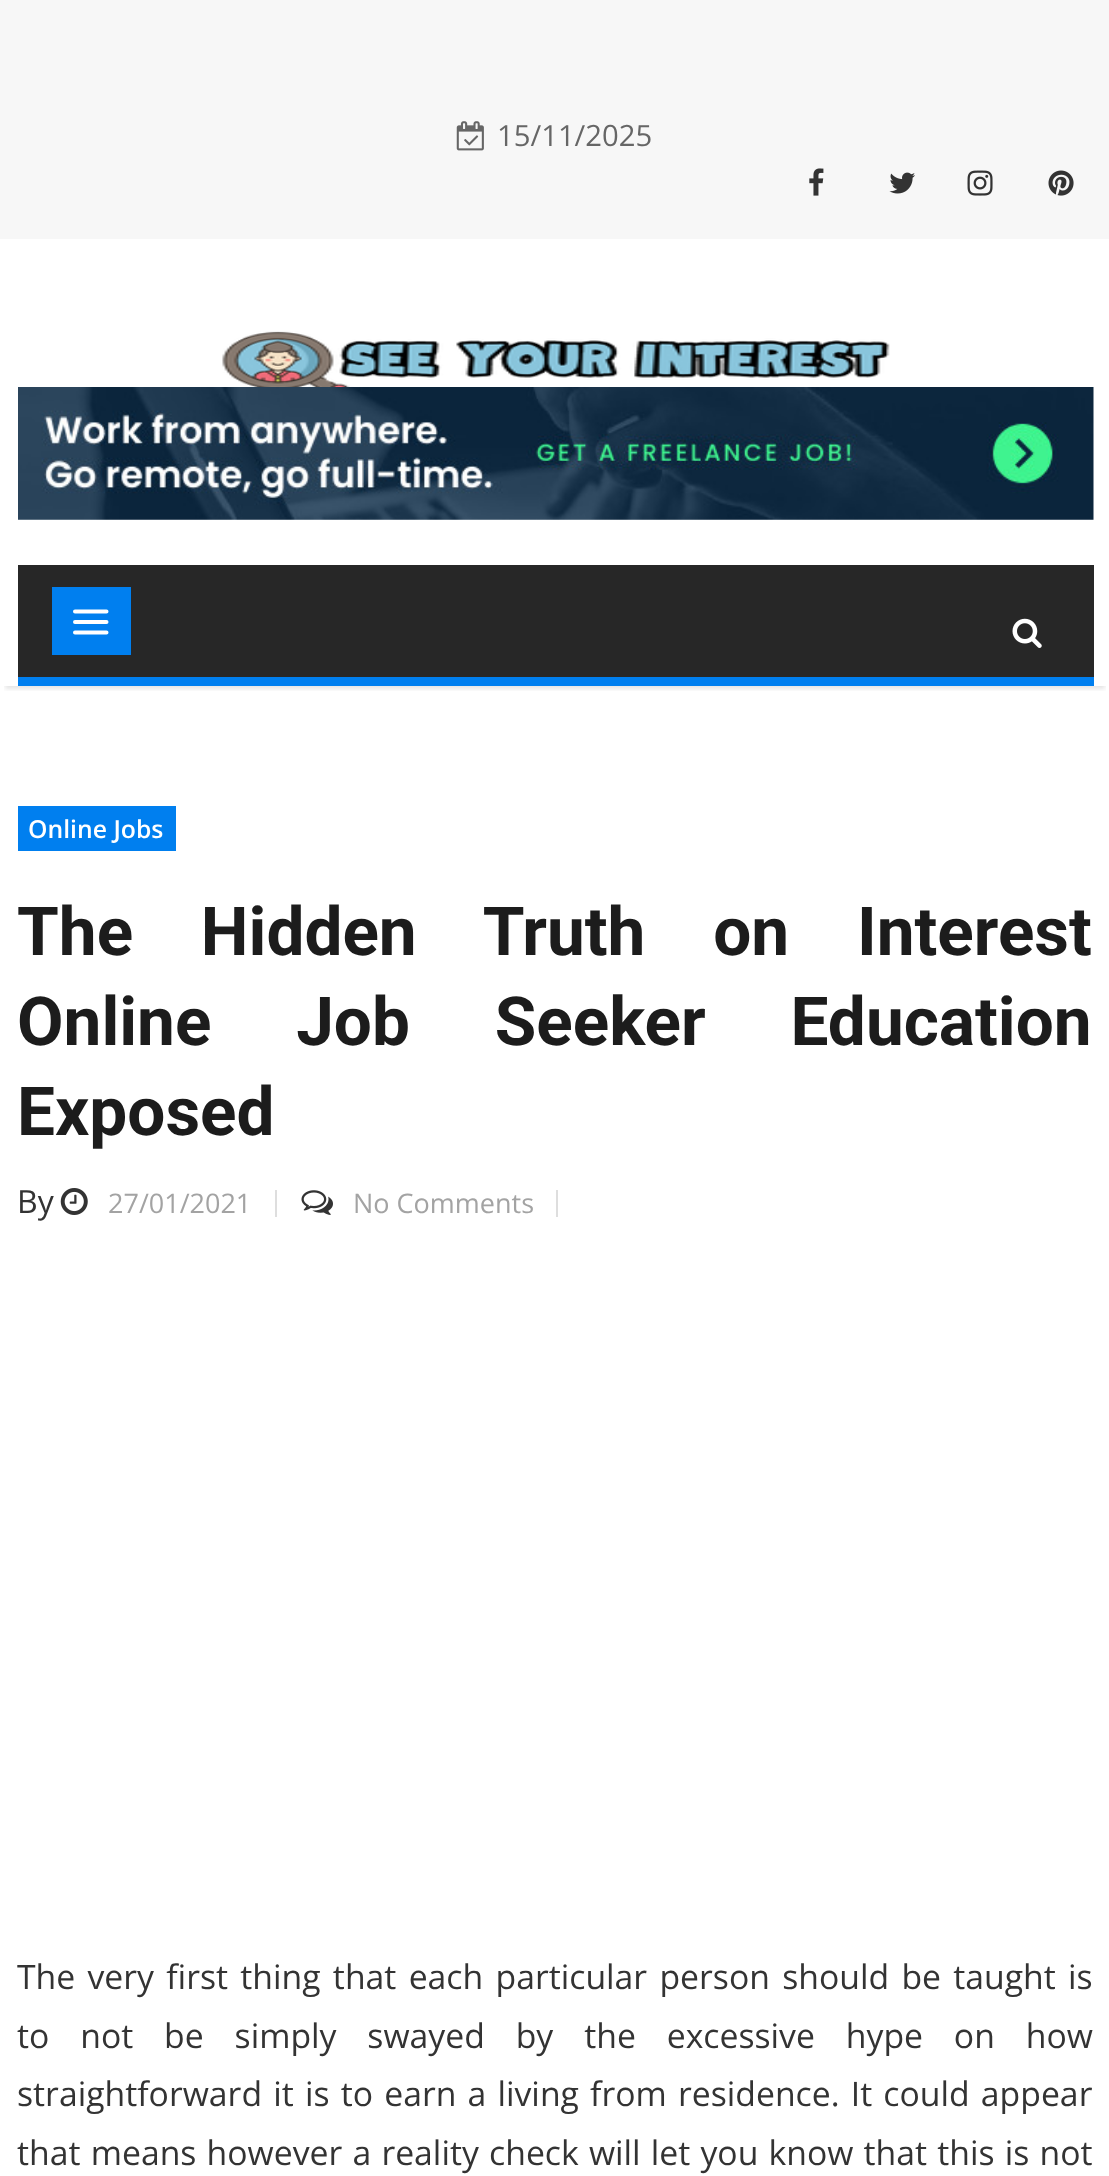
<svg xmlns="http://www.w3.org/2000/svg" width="1109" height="2176">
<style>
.a{font:29.25px Open Sans;fill:#666}
.b{font:600 24.75px Open Sans;fill:#fff}
.c{font:bold 67.5px Roboto;fill:#1c1c1c}
.d{font:32px Open Sans;fill:#333}
.e{font:27px Open Sans;fill:#a3a3a3}
.f{font:33.75px Open Sans;fill:#333}
</style>
<defs>
<clipPath id="clip1"><path d="M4 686h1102v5H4z"/></clipPath>
</defs>
<rect width="100%" height="100%" fill="#f7f7f7"/>
<path fill="#fff" d="M0 239h1109v1937H0z"/>
<image href="1.png" x="456" y="121" width="28" height="30"/>
<image href="2.png" x="809" y="168" width="15" height="28"/>
<image href="3.png" x="889" y="172" width="26" height="22"/>
<image href="4.png" x="967" y="170" width="26" height="26"/>
<image href="5.png" x="1048" y="170" width="26" height="26"/>
<image href="6.png" x="222" y="331" width="668" height="56"/>
<image href="7.png" x="18" y="387" width="1076" height="133"/>
<g clip-path="url(#clip1)">
<path fill="#0000001a" filter="blur(2px)" d="M5 576h1100v113H5z"/>
</g>
<path fill="#272727" d="M18 565h1076v112H18z"/>
<path fill="#007fef" d="M18 677h1076v9H18z"/>
<path fill="#007fef" d="M52 587h79v68H52z"/>
<path fill="none" stroke="#fff" stroke-width="4" stroke-linecap="round" d="M75 611.5h31.5m-31.5 10.5h31.5m-31.5 10.5h31.5"/>
<image href="8.png" x="1012" y="618" width="30" height="30"/>
<path fill="#007fef" d="M18 806h158v45H18z"/>
<image href="9.png" x="60" y="1188" width="28" height="27"/>
<path fill="#dedede" d="M275 1190h2v27H275z"/>
<image href="10.png" x="301" y="1190" width="32" height="25"/>
<path fill="#dedede" d="M556 1190h2v27H556z"/>
<text class="a" x="497" y="146">15/11/2025</text>
<text class="b" x="28" y="838">Online Jobs</text>
<text class="c" x="17" y="955" word-spacing="51">The Hidden Truth on Interest</text>
<text class="c" x="17" y="1045" word-spacing="68">Online Job Seeker Education</text>
<text class="c" x="17" y="1135">Exposed</text>
<text class="d" x="17" y="1213">By</text>
<text class="e" x="108" y="1213">27/01/2021</text>
<text class="e" x="353" y="1213">No Comments</text>
<text class="f" x="17" y="1989" word-spacing="3.5">The very first thing that each particular person should be taught is</text>
<text class="f" x="17" y="2048" word-spacing="22.1">to not be simply swayed by the excessive hype on how</text>
<text class="f" x="17" y="2106" word-spacing="2.4">straightforward it is to earn a living from residence. It could appear</text>
<text class="f" x="17" y="2165" word-spacing="1.4">that means however a reality check will let you know that this is not</text>
</svg>
